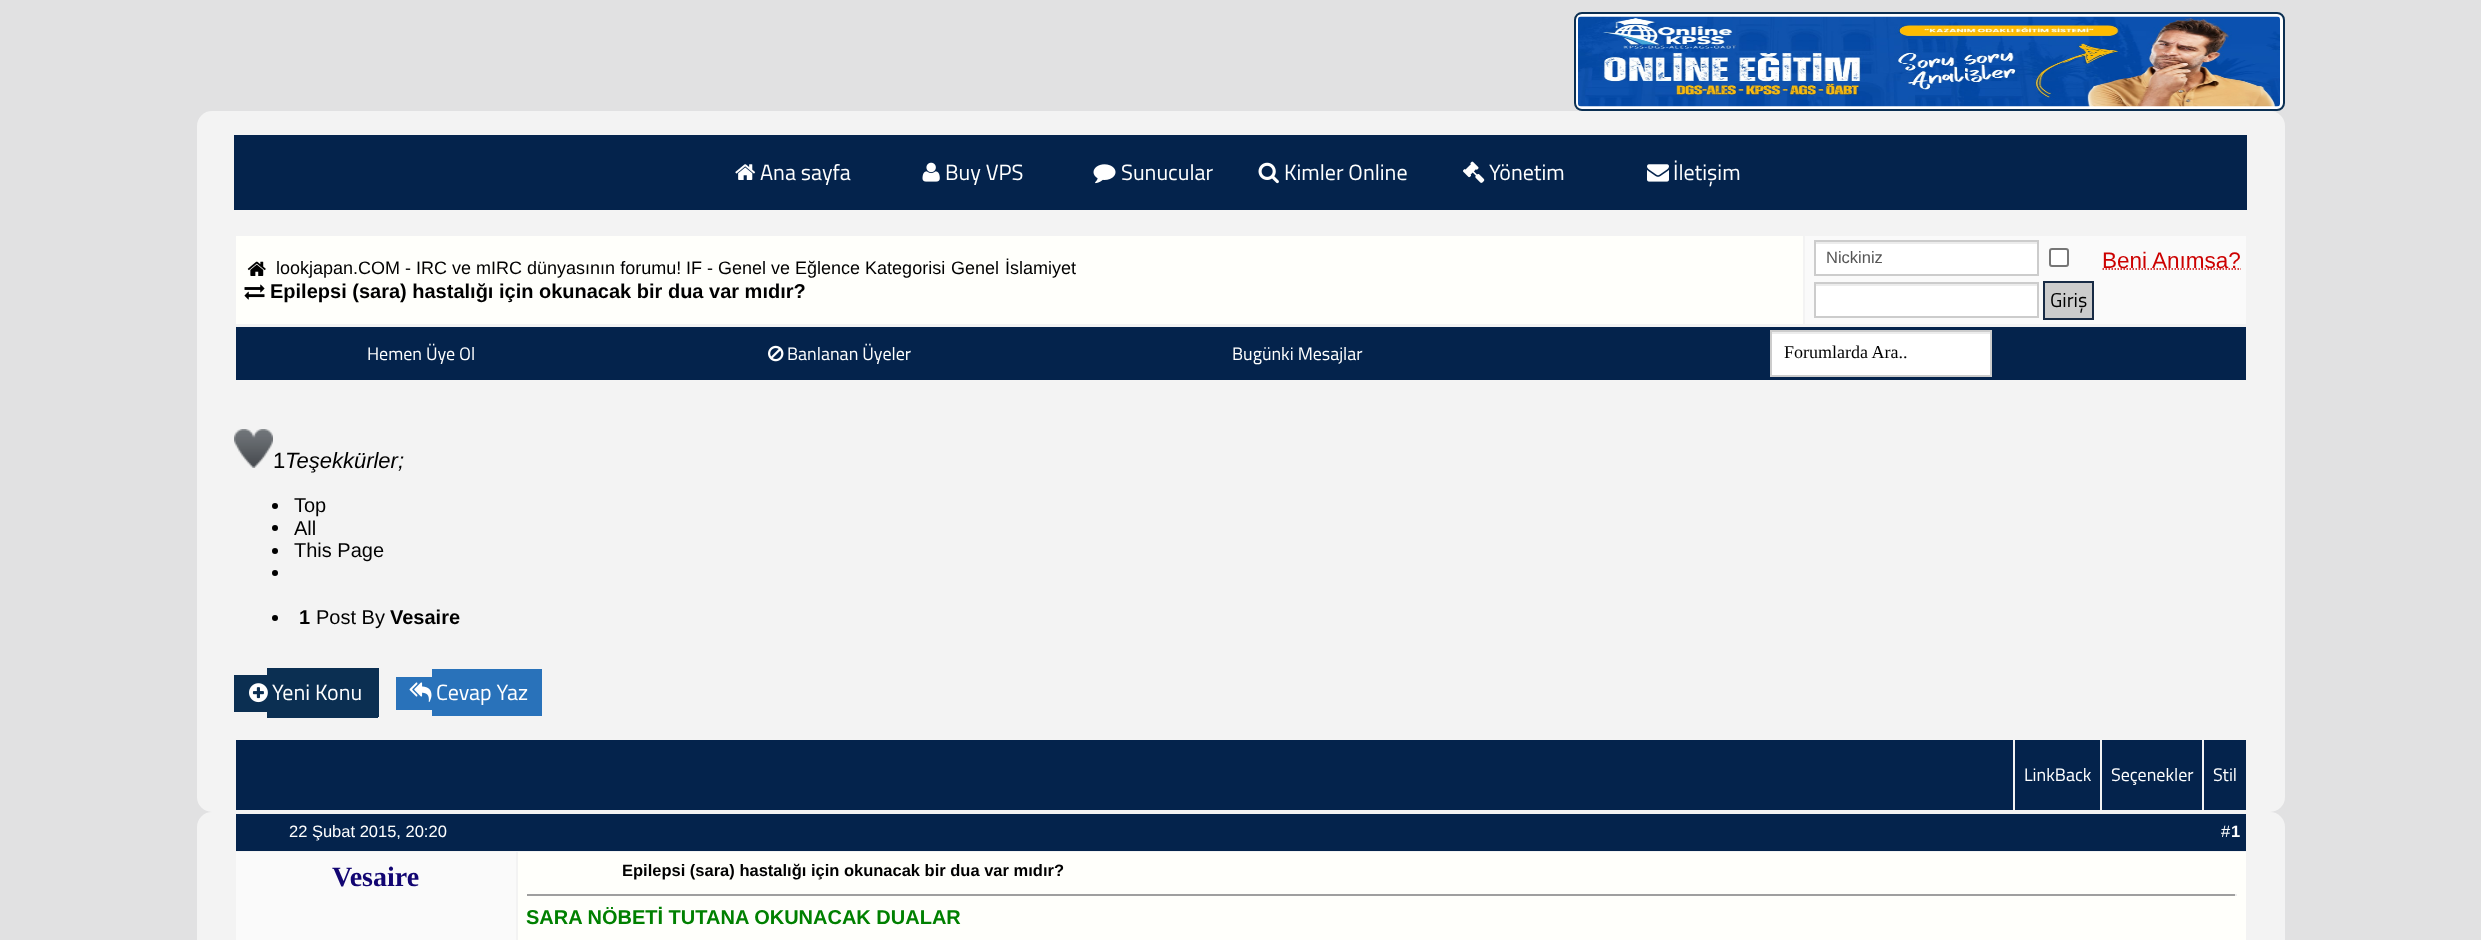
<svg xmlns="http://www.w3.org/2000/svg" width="2481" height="940">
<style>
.a{font:22px Titillium Web;fill:#fff}
.b{font:18px Liberation Sans;fill:#000}
.c{font:bold 20px Liberation Sans;fill:#000}
.d{font:16.5px Liberation Sans;fill:#555}
.e{font:22.5px Liberation Sans;fill:#c00}
.f{font:20px Titillium Web;fill:#000}
.g{font:18px Titillium Web;fill:#fff}
.h{font:18px Liberation Serif;fill:#000}
.i{font:22px Liberation Sans;fill:#000}
.j{font:italic 22px Liberation Sans;fill:#000}
.k{font:20px Liberation Sans;fill:#000}
.l{font:16.5px Liberation Sans;fill:#fff}
.m{font:bold 16.5px Liberation Sans;fill:#fff}
.n{font:bold 28px Liberation Serif;fill:#120572}
.o{font:bold 16.5px Liberation Sans;fill:#000}
.p{font:bold 20px Liberation Sans;fill:#008000}
</style>
<rect width="100%" height="100%" fill="#e1e1e2"/>
<rect fill="#fff" stroke="#0b2f52" stroke-width="2" x="1575" y="13" width="709" height="97" rx="7"/>
<image href="1.png" x="1578" y="16" width="702" height="91"/>
<rect fill="#f3f3f3" x="197" y="111" width="2088" height="701" rx="15"/>
<path fill="#04234c" d="M234 135h2013v75H234z"/>
<image href="2.png" x="735" y="164" width="21" height="16"/>
<image href="3.png" x="922" y="162" width="18" height="20"/>
<image href="4.png" x="1093" y="164" width="23" height="20"/>
<image href="5.png" x="1258" y="162" width="21" height="22"/>
<image href="6.png" x="1463" y="161" width="22" height="22"/>
<image href="7.png" x="1647" y="164" width="22" height="18"/>
<path fill="#fffffb" d="M236 236h1567v88H236z"/>
<image href="8.png" x="247" y="261" width="19" height="15"/>
<image href="9.png" x="244" y="284" width="21" height="16"/>
<path fill="#fafafa" d="M1805 236h441v88H1805z"/>
<path fill="#fff" d="M1816 244h221v30H1816z"/>
<path fill="#ececec" d="M1815 242h222v2H1815z"/>
<path fill="none" stroke="#ccc" stroke-width="2" d="M1815 241h223v34H1815z"/>
<rect fill="#fff" stroke="#767676" stroke-width="2" x="2050" y="249" width="18" height="17" rx="2"/>
<path fill="none" stroke="#c00" stroke-width="1.5" stroke-dasharray="1.5 1.5" d="M2102.5 269h138.5"/>
<path fill="#fff" d="M1816 286h221v30H1816z"/>
<path fill="#ececec" d="M1815 284h222v2H1815z"/>
<path fill="none" stroke="#ccc" stroke-width="2" d="M1815 283h223v34H1815z"/>
<path fill="#ccc" stroke="#182b45" stroke-width="2" d="M2044 282h49v37H2044z"/>
<path fill="#04234c" d="M236 327h2010v53H236z"/>
<image href="10.png" x="768" y="345" width="16" height="17"/>
<path fill="#fff" d="M1772 334h218v41H1772z"/>
<path fill="#ececec" d="M1772 332h219v2H1772z"/>
<path fill="none" stroke="#ccc" stroke-width="2" d="M1771 331h220v45H1771z"/>
<image href="11.png" x="234" y="429" width="39" height="39"/>
<circle fill="#000" cx="275" cy="506" r="3"/>
<circle fill="#000" cx="275" cy="528" r="3"/>
<circle fill="#000" cx="275" cy="551" r="3"/>
<circle fill="#000" cx="275" cy="573" r="3"/>
<circle fill="#000" cx="275" cy="618" r="3"/>
<path fill="#0b2f52" d="M234 675h33v37H234z"/>
<path fill="#0b2f52" d="M267 668h110v48H267z"/>
<path fill="#0b2f52" d="M377 668h2v49H377z"/>
<path fill="#0b2f52" d="M267 716h111v2H267z"/>
<image href="12.png" x="249" y="683" width="19" height="20"/>
<path fill="#2972ba" d="M396 677h36v33H396z"/>
<path fill="#2972ba" d="M432 669h110v47H432z"/>
<image href="13.png" x="409" y="682" width="23" height="20"/>
<path fill="#04234c" d="M236 740h1777v70H236z"/>
<path fill="#04234c" d="M2015 740h85v70H2015z"/>
<path fill="#04234c" d="M2102 740h100v70H2102z"/>
<path fill="#04234c" d="M2204 740h42v70H2204z"/>
<rect fill="#f3f3f3" x="197" y="812" width="2088" height="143" rx="15"/>
<path fill="#04234c" d="M236 814h2010v37H236z"/>
<path fill="#fafafa" d="M236 852h280v88H236z"/>
<path fill="#fffffb" d="M518 852h1728v88H518z"/>
<path fill="#9f9f9f" d="M527 894h1710v2H527z"/>
<path fill="#eee" d="M2235 894h2v2H2235z"/>
<text class="a" x="760" y="180">Ana sayfa</text>
<text class="a" x="945" y="180">Buy VPS</text>
<text class="a" x="1121" y="180">Sunucular</text>
<text class="a" x="1284" y="180">Kimler Online</text>
<text class="a" x="1489" y="180">Yönetim</text>
<text class="a" x="1673" y="180">İletişim</text>
<text class="b" x="276" y="274">lookjapan.COM - IRC ve mIRC dünyasının forumu!</text>
<text class="b" x="686" y="274">IF - Genel ve Eğlence Kategorisi</text>
<text class="b" x="951" y="274">Genel</text>
<text class="b" x="1005" y="274">İslamiyet</text>
<text class="c" x="270" y="298">Epilepsi (sara) hastalığı için okunacak bir dua var mıdır?</text>
<text class="d" x="1826" y="263">Nickiniz</text>
<text class="e" x="2102" y="268">Beni Anımsa?</text>
<text class="f" x="2050" y="307">Giriş</text>
<text class="g" x="367" y="360">Hemen Üye Ol</text>
<text class="g" x="787" y="360">Banlanan Üyeler</text>
<text class="g" x="1232" y="360">Bugünki Mesajlar</text>
<text class="h" x="1784" y="358">Forumlarda Ara..</text>
<text class="i" x="273" y="468">1</text>
<text class="j" x="285" y="468">Teşekkürler;</text>
<text class="k" x="294" y="512">Top</text>
<text class="k" x="294" y="535">All</text>
<text class="k" x="294" y="557">This Page</text>
<text class="c" x="299" y="624">1</text>
<text class="k" x="316" y="624">Post By</text>
<text class="c" x="390" y="624">Vesaire</text>
<text class="a" x="272" y="700">Yeni Konu</text>
<text class="a" x="436" y="700">Cevap Yaz</text>
<text class="g" x="2024" y="781">LinkBack</text>
<text class="g" x="2111" y="781">Seçenekler</text>
<text class="g" x="2213" y="781">Stil</text>
<text class="l" x="289" y="837">22 Şubat 2015, 20:20</text>
<text class="l" x="2221" y="837">#</text>
<text class="m" x="2231" y="837">1</text>
<text class="n" x="332" y="886">Vesaire</text>
<text class="o" x="622" y="876">Epilepsi (sara) hastalığı için okunacak bir dua var mıdır?</text>
<text class="p" x="526" y="924">SARA NÖBETİ TUTANA OKUNACAK DUALAR</text>
</svg>
